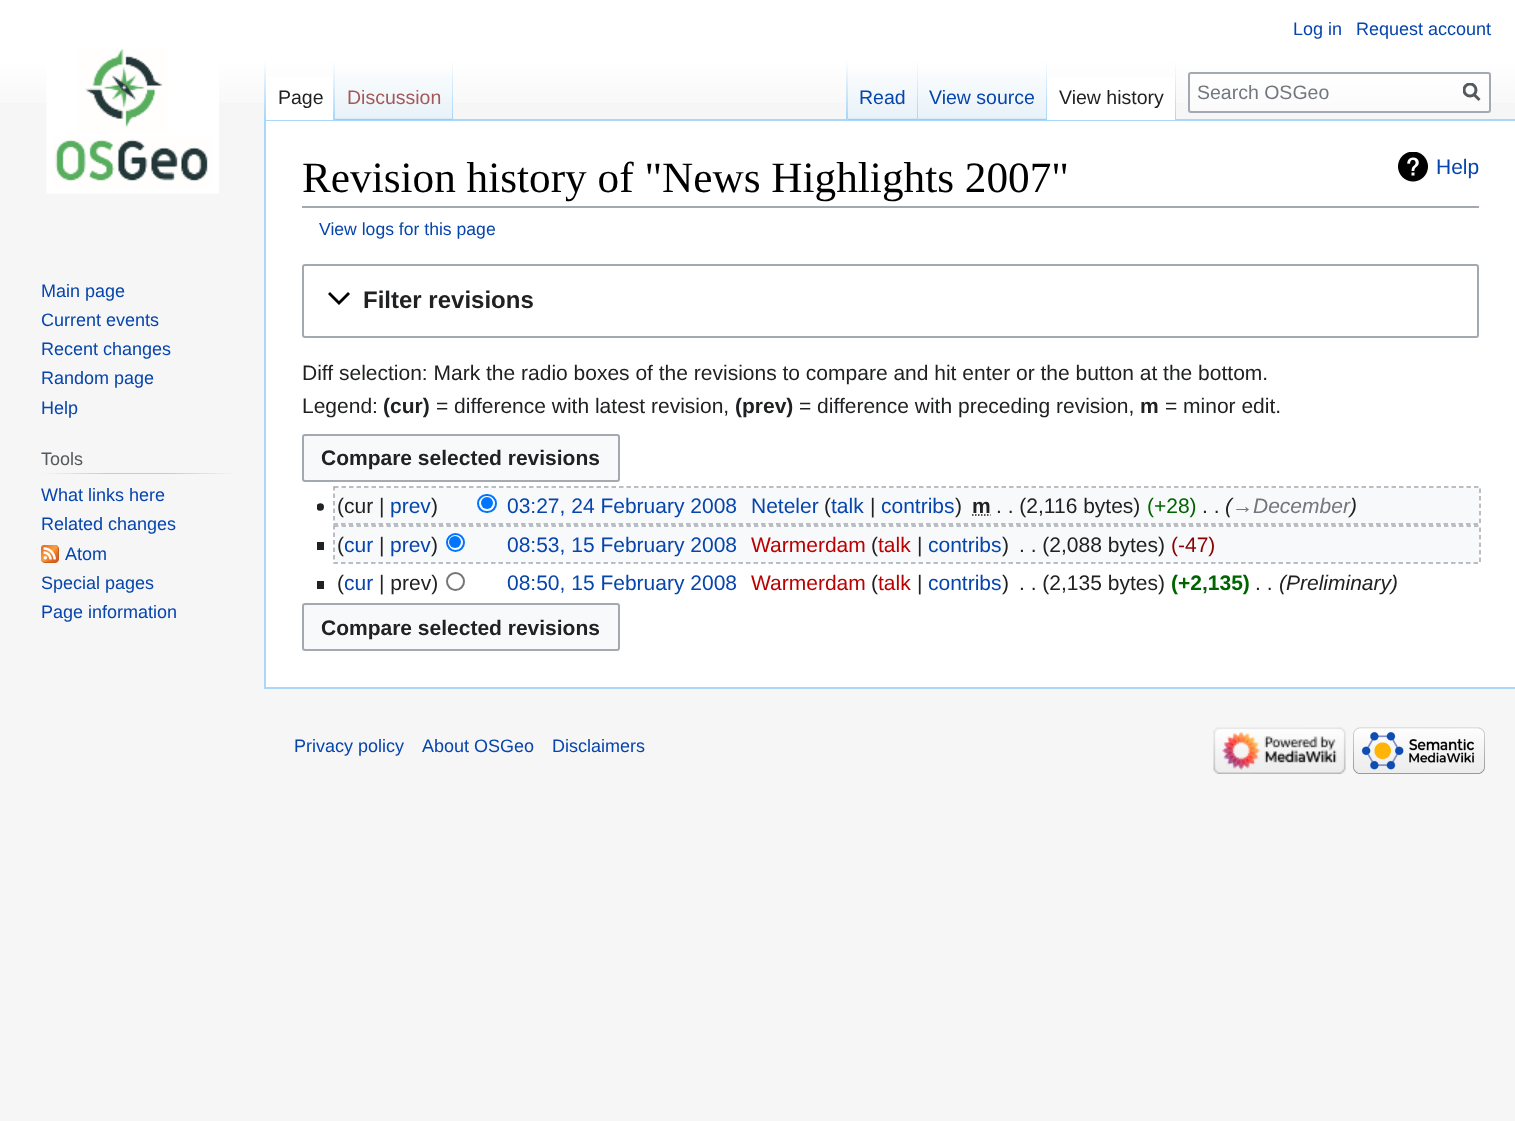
<svg xmlns="http://www.w3.org/2000/svg" width="1515" height="1121">
<style>
.a{font:18px Liberation Sans;fill:#0645ad}
.b{font:19.5px Liberation Sans;fill:#202122}
.c{font:19.5px Liberation Sans;fill:#a55858}
.d{font:19.5px Liberation Sans;fill:#0645ad}
.e{font:19.5px Liberation Sans;fill:#72777d}
.f{font:18px Liberation Sans;fill:#54595d}
.g{font:43.25px Liberation Serif;fill:#000}
.h{font:21px Liberation Sans;fill:#0645ad}
.i{font:17.6px Liberation Sans;fill:#0645ad}
.j{font:bold 24px Liberation Sans;fill:#202122}
.k{font:21px Liberation Sans;fill:#202122}
.l{font:bold 21px Liberation Sans;fill:#202122}
.m{font:21px Liberation Sans;fill:#006400}
.n{font:italic 21px Liberation Sans;fill:#202122}
.o{font:italic 21px Liberation Sans;fill:#72777d}
.p{font:21px Liberation Sans;fill:#ba0000}
.q{font:21px Liberation Sans;fill:#8b0000}
.r{font:bold 21px Liberation Sans;fill:#006400}
</style>
<defs>
<linearGradient id="g1" gradientUnits="userSpaceOnUse" x1="758" y1="0" x2="758" y2="120"><stop offset="0.5" stop-color="#fff"/><stop offset="1" stop-color="#f6f6f6"/></linearGradient>
<linearGradient id="g2" gradientUnits="userSpaceOnUse" x1="265" y1="60" x2="265" y2="120"><stop offset="0" stop-color="#a7d7f9" stop-opacity="0"/><stop offset="1" stop-color="#a7d7f9"/></linearGradient>
<linearGradient id="g3" gradientUnits="userSpaceOnUse" x1="334" y1="60" x2="334" y2="120"><stop offset="0" stop-color="#fff"/><stop offset="1" stop-color="#a7d7f9"/></linearGradient>
<linearGradient id="g4" gradientUnits="userSpaceOnUse" x1="394" y1="120" x2="394" y2="60"><stop offset="0" stop-color="#77c1f6"/><stop offset="0.03" stop-color="#e8f2f8"/><stop offset="1" stop-color="#fff"/></linearGradient>
<linearGradient id="g5" gradientUnits="userSpaceOnUse" x1="452" y1="60" x2="452" y2="120"><stop offset="0" stop-color="#a7d7f9" stop-opacity="0"/><stop offset="1" stop-color="#a7d7f9"/></linearGradient>
<linearGradient id="g6" gradientUnits="userSpaceOnUse" x1="847" y1="60" x2="847" y2="120"><stop offset="0" stop-color="#a7d7f9" stop-opacity="0"/><stop offset="1" stop-color="#a7d7f9"/></linearGradient>
<linearGradient id="g7" gradientUnits="userSpaceOnUse" x1="883" y1="120" x2="883" y2="60"><stop offset="0" stop-color="#77c1f6"/><stop offset="0.03" stop-color="#e8f2f8"/><stop offset="1" stop-color="#fff"/></linearGradient>
<linearGradient id="g8" gradientUnits="userSpaceOnUse" x1="917" y1="60" x2="917" y2="120"><stop offset="0" stop-color="#a7d7f9" stop-opacity="0"/><stop offset="1" stop-color="#a7d7f9"/></linearGradient>
<linearGradient id="g9" gradientUnits="userSpaceOnUse" x1="983" y1="120" x2="983" y2="60"><stop offset="0" stop-color="#77c1f6"/><stop offset="0.03" stop-color="#e8f2f8"/><stop offset="1" stop-color="#fff"/></linearGradient>
<linearGradient id="g10" gradientUnits="userSpaceOnUse" x1="1046" y1="60" x2="1046" y2="120"><stop offset="0" stop-color="#a7d7f9" stop-opacity="0"/><stop offset="1" stop-color="#a7d7f9"/></linearGradient>
<linearGradient id="g11" gradientUnits="userSpaceOnUse" x1="1175" y1="60" x2="1175" y2="120"><stop offset="0" stop-color="#fff"/><stop offset="1" stop-color="#a7d7f9"/></linearGradient>
<clipPath id="clip1"><path d="M1463 83h18v19H1463z"/></clipPath>
<linearGradient id="g12" gradientUnits="userSpaceOnUse" x1="41" y1="473" x2="237" y2="473"><stop offset="0" stop-color="#f6f6f6"/><stop offset="0.33" stop-color="#c8ccd1"/><stop offset="0.66" stop-color="#c8ccd1"/><stop offset="1" stop-color="#f6f6f6"/></linearGradient>
</defs>
<rect width="100%" height="100%" fill="#f6f6f6"/>
<path fill="url(#g1)" d="M0 0h1515v103H0z"/>
<path fill="#a7d7f9" d="M264 119h1251v2H264z"/>
<path fill="#a7d7f9" d="M264 687h1251v2H264z"/>
<path fill="#a7d7f9" d="M264 119h2v570H264z"/>
<path fill="url(#g2)" d="M264 60h2v60H264z"/>
<path fill="#fff" d="M266 77h67v43H266z"/>
<path fill="url(#g3)" d="M333 60h2v60H333z"/>
<path fill="url(#g4)" d="M335 69h118v51H335z"/>
<path fill="url(#g5)" d="M452 60h1v60H452z"/>
<path fill="url(#g6)" d="M846 60h2v60H846z"/>
<path fill="url(#g7)" d="M848 69h70v51H848z"/>
<path fill="url(#g8)" d="M917 60h1v60H917z"/>
<path fill="url(#g9)" d="M918 69h129v51H918z"/>
<path fill="url(#g10)" d="M1046 60h1v60H1046z"/>
<path fill="#fff" d="M1047 77h128v43H1047z"/>
<path fill="url(#g11)" d="M1175 60h1v60H1175z"/>
<rect fill="#ffffff80" stroke="#a2a9b1" stroke-width="2" x="1189" y="73" width="301" height="39" rx="2"/>
<path fill="none" stroke="#54595d" stroke-width="3" d="M1479.5 100l-6-6"/>
<g clip-path="url(#clip1)">
<circle fill="none" stroke="#54595d" stroke-width="3" cx="1470" cy="90" r="6"/>
</g>
<image href="1.png" x="46" y="48" width="173" height="146"/>
<path fill="url(#g12)" d="M41 473h196v1H41z"/>
<image href="2.png" x="41" y="545" width="18" height="18"/>
<path fill="#fff" d="M266 121h1249v566H266z"/>
<path fill="#a2a9b1" d="M302 206h1177v2H302z"/>
<image href="3.png" x="1398" y="152" width="30" height="30"/>
<rect fill="none" stroke="#a2a9b1" stroke-width="2" x="303" y="265" width="1175" height="72" rx="2"/>
<path fill="#000" d="M348 292l-9 9l-9-9l-2 2l11 11l11-11z"/>
<rect fill="#f8f9fa" stroke="#a2a9b1" stroke-width="2" x="303" y="435" width="316" height="46" rx="2"/>
<path fill="#f8f9fa" d="M335 488h1144v36H335z"/>
<image href="4.png" x="317" y="503" width="7" height="8"/>
<rect fill="#fff" stroke="#0075ff" stroke-width="2" x="478" y="495" width="18" height="17" rx="8.5"/>
<circle fill="#0075ff" cx="487" cy="503" r="6"/>
<path fill="none" stroke="#202122" stroke-width="1.5" stroke-dasharray="1.5 1.5" d="M972 515h18.5"/>
<path fill="#f8f9fa" d="M335 527h1144v36H335z"/>
<path fill="#202122" d="M317 542h7v8H317z"/>
<circle fill="#fff" stroke="#0075ff" stroke-width="2" cx="455.5" cy="542.5" r="8.5"/>
<circle fill="#0075ff" cx="455" cy="542" r="6"/>
<path fill="#202122" d="M317 581h7v8H317z"/>
<circle fill="none" stroke="#767676" stroke-width="2" cx="455.5" cy="581.5" r="8.5"/>
<rect fill="#f8f9fa" stroke="#a2a9b1" stroke-width="2" x="303" y="604" width="316" height="46" rx="2"/>
<image href="5.png" x="1213" y="727" width="133" height="47"/>
<image href="6.png" x="1353" y="727" width="132" height="47"/>
<text class="a" x="1293" y="35">Log in</text>
<text class="a" x="1356" y="35">Request account</text>
<text class="b" x="278" y="104">Page</text>
<text class="c" x="347" y="104">Discussion</text>
<text class="d" x="859" y="104">Read</text>
<text class="d" x="929" y="104">View source</text>
<text class="b" x="1059" y="104">View history</text>
<text class="e" x="1197" y="99">Search OSGeo</text>
<text class="a" x="41" y="297">Main page</text>
<text class="a" x="41" y="326">Current events</text>
<text class="a" x="41" y="355">Recent changes</text>
<text class="a" x="41" y="384">Random page</text>
<text class="a" x="41" y="414">Help</text>
<text class="f" x="41" y="465">Tools</text>
<text class="a" x="41" y="501">What links here</text>
<text class="a" x="41" y="530">Related changes</text>
<text class="a" x="65" y="560">Atom</text>
<text class="a" x="41" y="589">Special pages</text>
<text class="a" x="41" y="618">Page information</text>
<text class="g" x="302" y="192">Revision history of "News Highlights 2007"</text>
<text class="h" x="1436" y="174">Help</text>
<text class="i" x="319" y="235">View logs for this page</text>
<text class="j" x="363" y="308">Filter revisions</text>
<text class="k" x="302" y="380">Diff selection: Mark the radio boxes of the revisions to compare and hit enter or the button at the bottom.</text>
<text class="k" x="302" y="413">Legend:</text>
<text class="l" x="383" y="413">(cur)</text>
<text class="k" x="436" y="413">= difference with latest revision,</text>
<text class="l" x="735" y="413">(prev)</text>
<text class="k" x="799" y="413">= difference with preceding revision,</text>
<text class="l" x="1140" y="413">m</text>
<text class="k" x="1165" y="413">= minor edit.</text>
<text class="l" x="321" y="465">Compare selected revisions</text>
<text class="k" x="337" y="513">(cur |</text>
<text class="h" x="390" y="513">prev</text>
<text class="k" x="431" y="513">)</text>
<text class="h" x="507" y="513">03:27, 24 February 2008</text>
<text class="h" x="751" y="513">Neteler</text>
<text class="k" x="824" y="513">(</text>
<text class="h" x="831" y="513">talk</text>
<text class="k" x="870" y="513">|</text>
<text class="h" x="881" y="513">contribs</text>
<text class="k" x="955" y="513">)</text>
<text class="l" x="972" y="513">m</text>
<text class="k" x="996" y="513">. . (2,116 bytes)</text>
<text class="m" x="1147" y="513">(+28)</text>
<text class="k" x="1202" y="513">. .</text>
<text class="n" x="1225" y="513">(</text>
<text class="o" x="1232" y="513">→December</text>
<text class="n" x="1350" y="513">)</text>
<path fill="none" stroke="#a2a9b1" stroke-width="1.5" stroke-dasharray="4.5 3" d="M334 487h1146v37h-1146z"/>
<text class="k" x="337" y="552">(</text>
<text class="h" x="344" y="552">cur</text>
<text class="k" x="379" y="552">|</text>
<text class="h" x="390" y="552">prev</text>
<text class="k" x="431" y="552">)</text>
<text class="h" x="507" y="552">08:53, 15 February 2008</text>
<text class="p" x="751" y="552">Warmerdam</text>
<text class="k" x="871" y="552">(</text>
<text class="p" x="878" y="552">talk</text>
<text class="k" x="917" y="552">|</text>
<text class="h" x="928" y="552">contribs</text>
<text class="k" x="1002" y="552">)</text>
<text class="k" x="1019" y="552">. . (2,088 bytes)</text>
<text class="q" x="1171" y="552">(-47)</text>
<path fill="none" stroke="#a2a9b1" stroke-width="1.5" stroke-dasharray="4.5 3" d="M334 526h1146v37h-1146z"/>
<text class="k" x="337" y="590">(</text>
<text class="h" x="344" y="590">cur</text>
<text class="k" x="379" y="590">| prev)</text>
<text class="h" x="507" y="590">08:50, 15 February 2008</text>
<text class="p" x="751" y="590">Warmerdam</text>
<text class="k" x="871" y="590">(</text>
<text class="p" x="878" y="590">talk</text>
<text class="k" x="917" y="590">|</text>
<text class="h" x="928" y="590">contribs</text>
<text class="k" x="1002" y="590">)</text>
<text class="k" x="1019" y="590">. . (2,135 bytes)</text>
<text class="r" x="1171" y="590">(+2,135)</text>
<text class="k" x="1255" y="590">. .</text>
<text class="n" x="1279" y="590">(Preliminary)</text>
<text class="l" x="321" y="635">Compare selected revisions</text>
<text class="a" x="294" y="752">Privacy policy</text>
<text class="a" x="422" y="752">About OSGeo</text>
<text class="a" x="552" y="752">Disclaimers</text>
</svg>
